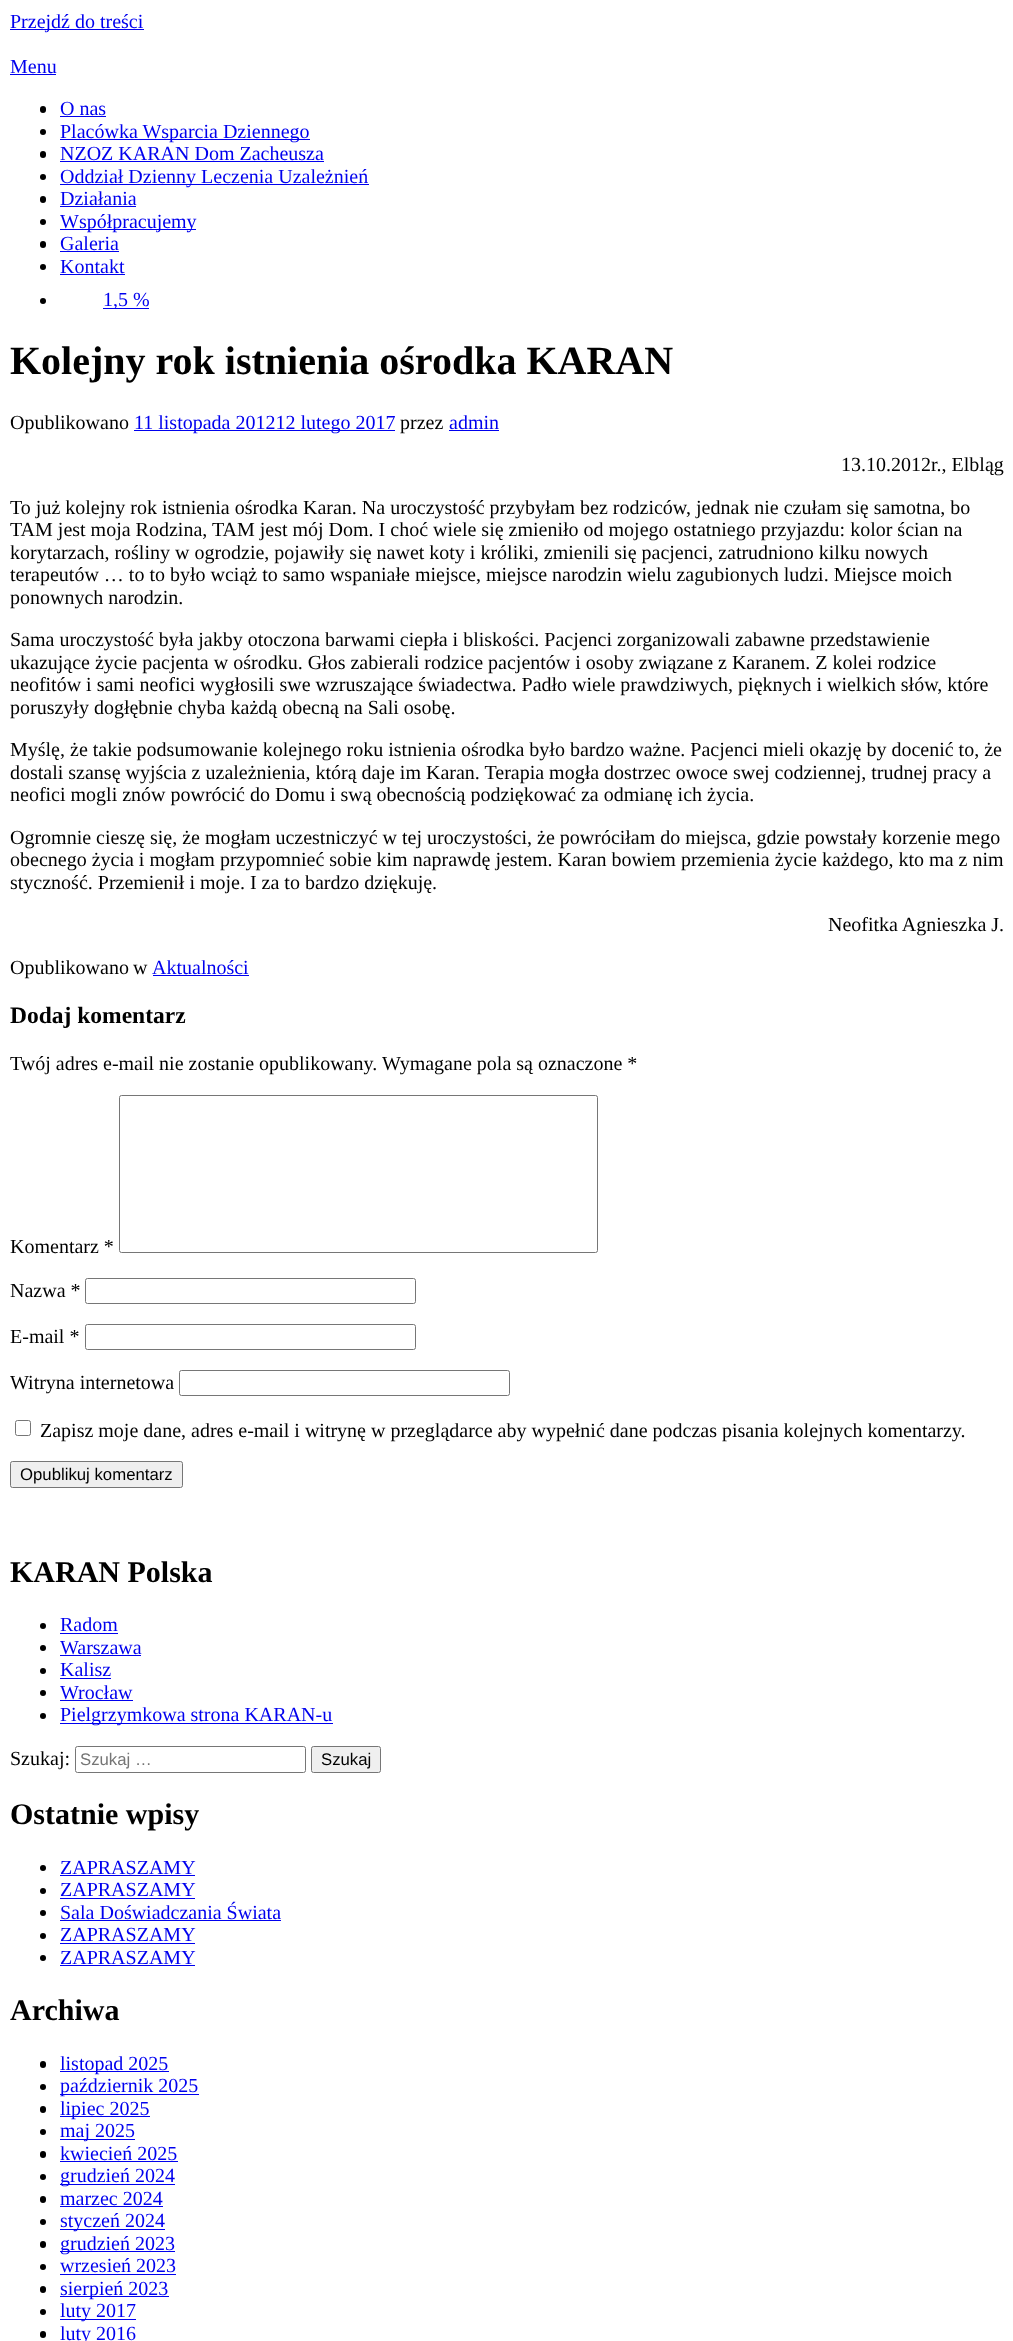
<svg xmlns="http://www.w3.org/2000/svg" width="1013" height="2341">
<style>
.a{font:20px Liberation Serif;fill:#00e}
.b{font:bold 40px Liberation Serif;fill:#000}
.c{font:20px Liberation Serif;fill:#000}
.d{font:bold 23.5px Liberation Serif;fill:#000}
.e{font:16.75px Liberation Sans;fill:#000}
.f{font:bold 30px Liberation Serif;fill:#000}
.g{font:16.75px Liberation Sans;fill:#757575}
</style>
<rect width="100%" height="100%" fill="#fff"/>
<path fill="#00e" d="M10 29h134v1H10z"/>
<path fill="#00e" d="M10 74h46v1H10z"/>
<rect fill="#000" x="40" y="106" width="6" height="7" rx="3"/>
<path fill="#00e" d="M60 116h46v1H60z"/>
<circle fill="#000" cx="43" cy="132" r="3"/>
<path fill="#00e" d="M60 139h250v1H60z"/>
<rect fill="#000" x="40" y="151" width="6" height="7" rx="3"/>
<path fill="#00e" d="M60 161h264v1H60z"/>
<circle fill="#000" cx="43" cy="177" r="3"/>
<path fill="#00e" d="M60 184h309v1H60z"/>
<rect fill="#000" x="40" y="196" width="6" height="7" rx="3"/>
<path fill="#00e" d="M60 206h76v1H60z"/>
<circle fill="#000" cx="43" cy="222" r="3"/>
<path fill="#00e" d="M60 229h136v1H60z"/>
<rect fill="#000" x="40" y="241" width="6" height="7" rx="3"/>
<path fill="#00e" d="M60 251h59v1H60z"/>
<circle fill="#000" cx="43" cy="267" r="3"/>
<path fill="#00e" d="M60 274h65v1H60z"/>
<circle fill="#000" cx="43" cy="301" r="3"/>
<path fill="#00e" d="M103 308h46v1H103z"/>
<path fill="#00e" d="M134 430h261v1H134z"/>
<path fill="#00e" d="M449 430h50v1H449z"/>
<path fill="#00e" d="M153 975h96v1H153z"/>
<rect fill="none" stroke="#767676" x="119.5" y="1095.5" width="478" height="157" rx="2"/>
<rect fill="none" stroke="#767676" x="85.5" y="1278.5" width="330" height="25" rx="2"/>
<rect fill="none" stroke="#767676" x="85.5" y="1324.5" width="330" height="25" rx="2"/>
<rect fill="none" stroke="#767676" x="179.5" y="1370.5" width="330" height="25" rx="2"/>
<rect fill="none" stroke="#767676" x="15.5" y="1420.5" width="15" height="15" rx="2"/>
<rect fill="#efefef" stroke="#767676" x="10.5" y="1461.5" width="172" height="26" rx="2"/>
<circle fill="#000" cx="43" cy="1626" r="3"/>
<path fill="#00e" d="M60 1633h58v1H60z"/>
<circle fill="#000" cx="43" cy="1648" r="3"/>
<path fill="#00e" d="M60 1655h81v1H60z"/>
<circle fill="#000" cx="43" cy="1671" r="3"/>
<path fill="#00e" d="M60 1678h51v1H60z"/>
<circle fill="#000" cx="43" cy="1693" r="3"/>
<path fill="#00e" d="M60 1700h73v1H60z"/>
<circle fill="#000" cx="43" cy="1716" r="3"/>
<path fill="#00e" d="M60 1723h273v1H60z"/>
<rect fill="none" stroke="#767676" x="75.5" y="1746.5" width="230" height="26" rx="2"/>
<rect fill="#efefef" stroke="#767676" x="311.5" y="1746.5" width="69" height="26" rx="2"/>
<circle fill="#000" cx="43" cy="1868" r="3"/>
<path fill="#00e" d="M60 1875h135v1H60z"/>
<circle fill="#000" cx="43" cy="1891" r="3"/>
<path fill="#00e" d="M60 1898h135v1H60z"/>
<circle fill="#000" cx="43" cy="1913" r="3"/>
<path fill="#00e" d="M60 1920h221v1H60z"/>
<circle fill="#000" cx="43" cy="1936" r="3"/>
<path fill="#00e" d="M60 1943h135v1H60z"/>
<circle fill="#000" cx="43" cy="1958" r="3"/>
<path fill="#00e" d="M60 1965h135v1H60z"/>
<rect fill="#000" x="40" y="2061" width="6" height="7" rx="3"/>
<path fill="#00e" d="M60 2071h109v1H60z"/>
<circle fill="#000" cx="43" cy="2087" r="3"/>
<path fill="#00e" d="M60 2094h139v1H60z"/>
<rect fill="#000" x="40" y="2106" width="6" height="7" rx="3"/>
<path fill="#00e" d="M60 2116h90v1H60z"/>
<circle fill="#000" cx="43" cy="2132" r="3"/>
<path fill="#00e" d="M60 2139h75v1H60z"/>
<rect fill="#000" x="40" y="2151" width="6" height="7" rx="3"/>
<path fill="#00e" d="M60 2161h118v1H60z"/>
<circle fill="#000" cx="43" cy="2177" r="3"/>
<path fill="#00e" d="M60 2184h115v1H60z"/>
<rect fill="#000" x="40" y="2196" width="6" height="7" rx="3"/>
<path fill="#00e" d="M60 2206h103v1H60z"/>
<circle fill="#000" cx="43" cy="2222" r="3"/>
<path fill="#00e" d="M60 2229h105v1H60z"/>
<rect fill="#000" x="40" y="2241" width="6" height="7" rx="3"/>
<path fill="#00e" d="M60 2251h115v1H60z"/>
<circle fill="#000" cx="43" cy="2267" r="3"/>
<path fill="#00e" d="M60 2274h116v1H60z"/>
<rect fill="#000" x="40" y="2286" width="6" height="7" rx="3"/>
<path fill="#00e" d="M60 2296h109v1H60z"/>
<circle fill="#000" cx="43" cy="2312" r="3"/>
<path fill="#00e" d="M60 2319h76v1H60z"/>
<rect fill="#000" x="40" y="2331" width="6" height="7" rx="3"/>
<text class="a" x="10" y="28">Przejdź do treści</text>
<text class="a" x="10" y="73">Menu</text>
<text class="a" x="60" y="115">O nas</text>
<text class="a" x="60" y="138">Placówka Wsparcia Dziennego</text>
<text class="a" x="60" y="160">NZOZ KARAN Dom Zacheusza</text>
<text class="a" x="60" y="183">Oddział Dzienny Leczenia Uzależnień</text>
<text class="a" x="60" y="205">Działania</text>
<text class="a" x="60" y="228">Współpracujemy</text>
<text class="a" x="60" y="250">Galeria</text>
<text class="a" x="60" y="273">Kontakt</text>
<text class="a" x="103" y="306">1,5 %</text>
<text class="b" x="10" y="374">Kolejny rok istnienia ośrodka KARAN</text>
<text class="c" x="10" y="429">Opublikowano</text>
<text class="a" x="134" y="429">11 listopada 201212 lutego 2017</text>
<text class="c" x="400" y="429">przez</text>
<text class="a" x="449" y="429">admin</text>
<text class="c" x="841" y="471">13.10.2012r., Elbląg</text>
<text class="c" x="10" y="514">To już kolejny rok istnienia ośrodka Karan. Na uroczystość przybyłam bez rodziców, jednak nie czułam się samotna, bo</text>
<text class="c" x="10" y="536">TAM jest moja Rodzina, TAM jest mój Dom. I choć wiele się zmieniło od mojego ostatniego przyjazdu: kolor ścian na</text>
<text class="c" x="10" y="559">korytarzach, rośliny w ogrodzie, pojawiły się nawet koty i króliki, zmienili się pacjenci, zatrudniono kilku nowych</text>
<text class="c" x="10" y="581">terapeutów … to to było wciąż to samo wspaniałe miejsce, miejsce narodzin wielu zagubionych ludzi. Miejsce moich</text>
<text class="c" x="10" y="604">ponownych narodzin.</text>
<text class="c" x="10" y="646">Sama uroczystość była jakby otoczona barwami ciepła i bliskości. Pacjenci zorganizowali zabawne przedstawienie</text>
<text class="c" x="10" y="669">ukazujące życie pacjenta w ośrodku. Głos zabierali rodzice pacjentów i osoby związane z Karanem. Z kolei rodzice</text>
<text class="c" x="10" y="691">neofitów i sami neofici wygłosili swe wzruszające świadectwa. Padło wiele prawdziwych, pięknych i wielkich słów, które</text>
<text class="c" x="10" y="714">poruszyły dogłębnie chyba każdą obecną na Sali osobę.</text>
<text class="c" x="10" y="756">Myślę, że takie podsumowanie kolejnego roku istnienia ośrodka było bardzo ważne. Pacjenci mieli okazję by docenić to, że</text>
<text class="c" x="10" y="779">dostali szansę wyjścia z uzależnienia, którą daje im Karan. Terapia mogła dostrzec owoce swej codziennej, trudnej pracy a</text>
<text class="c" x="10" y="801">neofici mogli znów powrócić do Domu i swą obecnością podziękować za odmianę ich życia.</text>
<text class="c" x="10" y="844">Ogromnie cieszę się, że mogłam uczestniczyć w tej uroczystości, że powróciłam do miejsca, gdzie powstały korzenie mego</text>
<text class="c" x="10" y="866">obecnego życia i mogłam przypomnieć sobie kim naprawdę jestem. Karan bowiem przemienia życie każdego, kto ma z nim</text>
<text class="c" x="10" y="889">styczność. Przemienił i moje. I za to bardzo dziękuję.</text>
<text class="c" x="828" y="931">Neofitka Agnieszka J.</text>
<text class="c" x="10" y="974" word-spacing="-1">Opublikowano w</text>
<text class="a" x="152" y="974">Aktualności</text>
<text class="d" x="10" y="1023">Dodaj komentarz</text>
<text class="c" x="10" y="1070">Twój adres e-mail nie zostanie opublikowany.</text>
<text class="c" x="382" y="1070">Wymagane pola są oznaczone *</text>
<text class="c" x="10" y="1253">Komentarz *</text>
<text class="c" x="10" y="1297">Nazwa *</text>
<text class="c" x="10" y="1343">E-mail *</text>
<text class="c" x="10" y="1389">Witryna internetowa</text>
<text class="c" x="40" y="1437">Zapisz moje dane, adres e-mail i witrynę w przeglądarce aby wypełnić dane podczas pisania kolejnych komentarzy.</text>
<text class="e" x="20" y="1480">Opublikuj komentarz</text>
<text class="f" x="10" y="1582">KARAN Polska</text>
<text class="a" x="60" y="1631">Radom</text>
<text class="a" x="60" y="1654">Warszawa</text>
<text class="a" x="60" y="1676">Kalisz</text>
<text class="a" x="60" y="1699">Wrocław</text>
<text class="a" x="60" y="1721">Pielgrzymkowa strona KARAN-u</text>
<text class="c" x="10" y="1765">Szukaj:</text>
<text class="g" x="80" y="1765">Szukaj …</text>
<text class="e" x="321" y="1765">Szukaj</text>
<text class="f" x="10" y="1824">Ostatnie wpisy</text>
<text class="a" x="60" y="1874">ZAPRASZAMY</text>
<text class="a" x="60" y="1896">ZAPRASZAMY</text>
<text class="a" x="60" y="1919">Sala Doświadczania Świata</text>
<text class="a" x="60" y="1941">ZAPRASZAMY</text>
<text class="a" x="60" y="1964">ZAPRASZAMY</text>
<text class="f" x="10" y="2020">Archiwa</text>
<text class="a" x="60" y="2070">listopad 2025</text>
<text class="a" x="60" y="2092">październik 2025</text>
<text class="a" x="60" y="2115">lipiec 2025</text>
<text class="a" x="60" y="2137">maj 2025</text>
<text class="a" x="60" y="2160">kwiecień 2025</text>
<text class="a" x="60" y="2182">grudzień 2024</text>
<text class="a" x="60" y="2205">marzec 2024</text>
<text class="a" x="60" y="2227">styczeń 2024</text>
<text class="a" x="60" y="2250">grudzień 2023</text>
<text class="a" x="60" y="2272">wrzesień 2023</text>
<text class="a" x="60" y="2295">sierpień 2023</text>
<text class="a" x="60" y="2317">luty 2017</text>
<text class="a" x="60" y="2340">luty 2016</text>
</svg>
